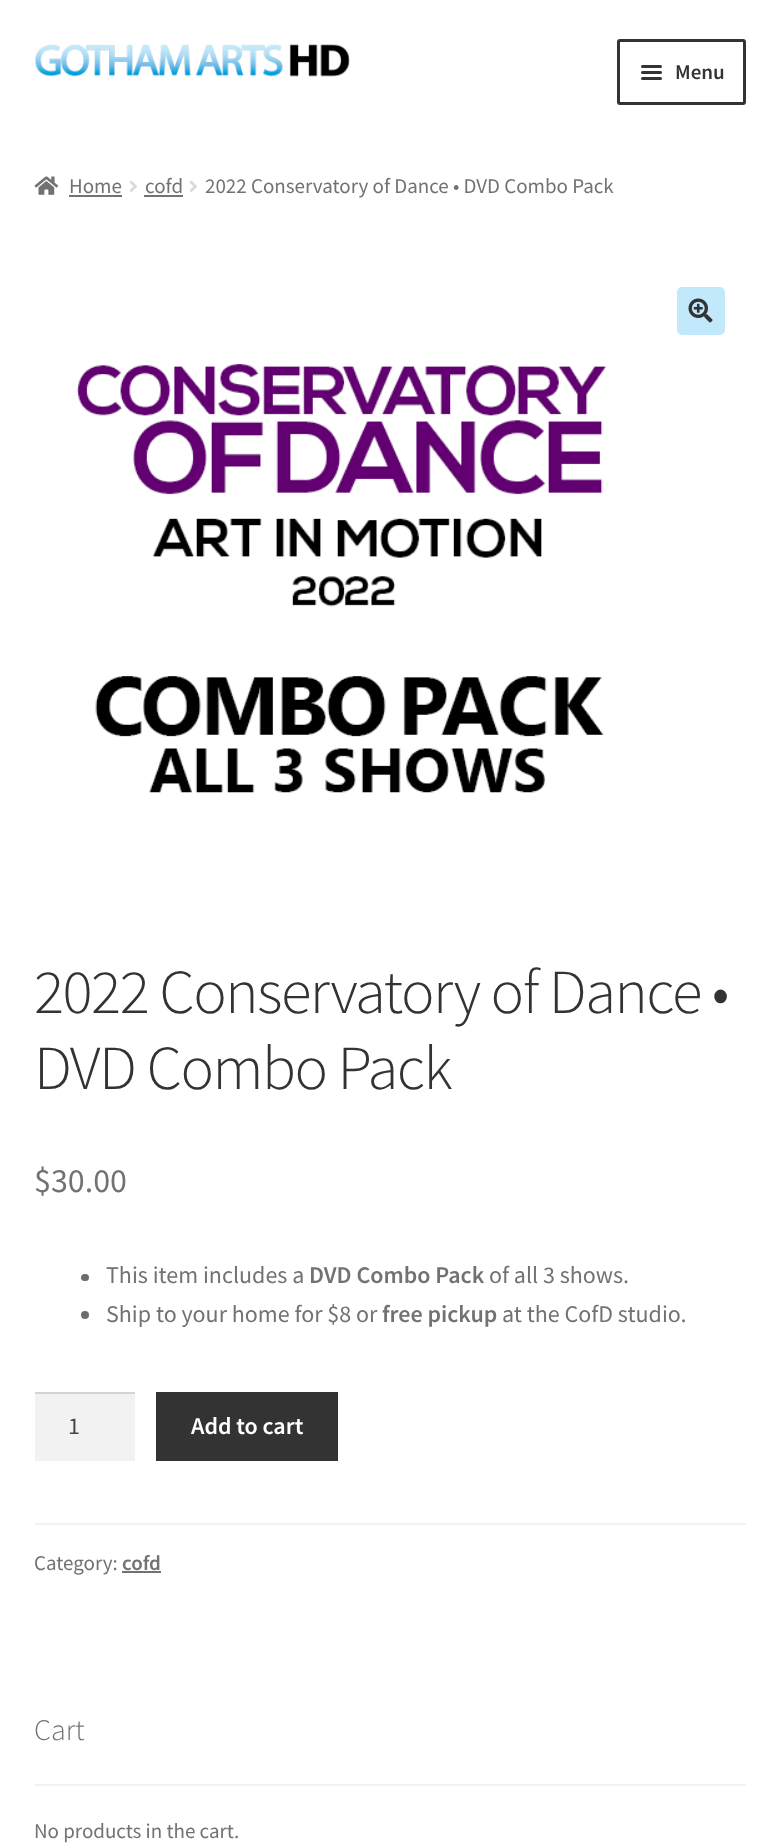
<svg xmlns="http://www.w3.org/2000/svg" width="779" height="1847">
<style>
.a{font:600 21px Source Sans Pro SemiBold;fill:#333}
.b{font:21px Source Sans Pro;fill:#727272}
.c{font:300 62.75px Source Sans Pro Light;letter-spacing:-1.5px;fill:#333}
.d{font:34px Source Sans Pro;fill:#727272}
.e{font:24px Source Sans Pro;fill:#727272}
.f{font:600 24px Source Sans Pro SemiBold;fill:#727272}
.g{font:24px Source Sans Pro;fill:#43454b}
.h{font:600 24px Source Sans Pro SemiBold;fill:#fff}
.i{font:600 21px Source Sans Pro SemiBold;fill:#727272}
.j{font:300 30px Source Sans Pro Light;fill:#727272}
</style>
<rect width="100%" height="100%" fill="#fff"/>
<image href="1.png" x="35" y="44" width="315" height="33"/>
<rect fill="none" stroke="#333" stroke-width="3" x="618.5" y="40.5" width="126" height="63" rx="1.5"/>
<rect fill="#333" x="641" y="65" width="21" height="3" rx="1.5"/>
<rect fill="#333" x="641" y="71" width="21" height="3" rx="1.5"/>
<rect fill="#333" x="641" y="77" width="21" height="3" rx="1.5"/>
<image href="2.png" x="34" y="176" width="25" height="19"/>
<path fill="#727272" d="M69 195h53v2H69z"/>
<image href="3.png" x="129" y="180" width="8" height="12"/>
<path fill="#727272" d="M144 195h39v2H144z"/>
<image href="3.png" x="189" y="180" width="8" height="12"/>
<rect fill="#c1e9fb" x="677" y="287" width="48" height="48" rx="5"/>
<image href="4.png" x="688" y="298" width="25" height="25"/>
<image href="5.png" x="76" y="364" width="531" height="429"/>
<rect fill="#6d6d6d" x="81" y="1274" width="8" height="7" rx="3.5"/>
<circle fill="#6d6d6d" cx="85" cy="1315" r="4"/>
<path fill="#f2f2f2" d="M35 1394h100v67H35z"/>
<path fill="#d4d4d4" d="M35 1392h100v2H35z"/>
<path fill="#333" d="M156 1392h182v69H156z"/>
<path fill="#f2f2f2" d="M35 1523h711v2H35z"/>
<path fill="#727272" d="M122 1571h39v2H122z"/>
<path fill="#f2f2f2" d="M35 1784h711v2H35z"/>
<text class="a" x="675" y="79">Menu</text>
<text class="b" x="69" y="193">Home</text>
<text class="b" x="145" y="193">cofd</text>
<text class="b" x="205" y="193">2022 Conservatory of Dance • DVD Combo Pack</text>
<text class="c" x="34" y="1013">2022 Conservatory of Dance •</text>
<text class="c" x="34" y="1089">DVD Combo Pack</text>
<text class="d" x="34" y="1192">$30.00</text>
<text class="e" x="106" y="1283">This item includes a</text>
<text class="f" x="309" y="1283">DVD Combo Pack</text>
<text class="e" x="489" y="1283">of all 3 shows.</text>
<text class="e" x="106" y="1322">Ship to your home for $8 or</text>
<text class="f" x="382" y="1322">free pickup</text>
<text class="e" x="502" y="1322">at the CofD studio.</text>
<text class="g" x="68" y="1434">1</text>
<text class="h" x="191" y="1434">Add to cart</text>
<text class="b" x="34" y="1570">Category:</text>
<text class="i" x="122" y="1570">cofd</text>
<text class="j" x="34" y="1740">Cart</text>
<text class="b" x="34" y="1838">No products in the cart.</text>
</svg>
